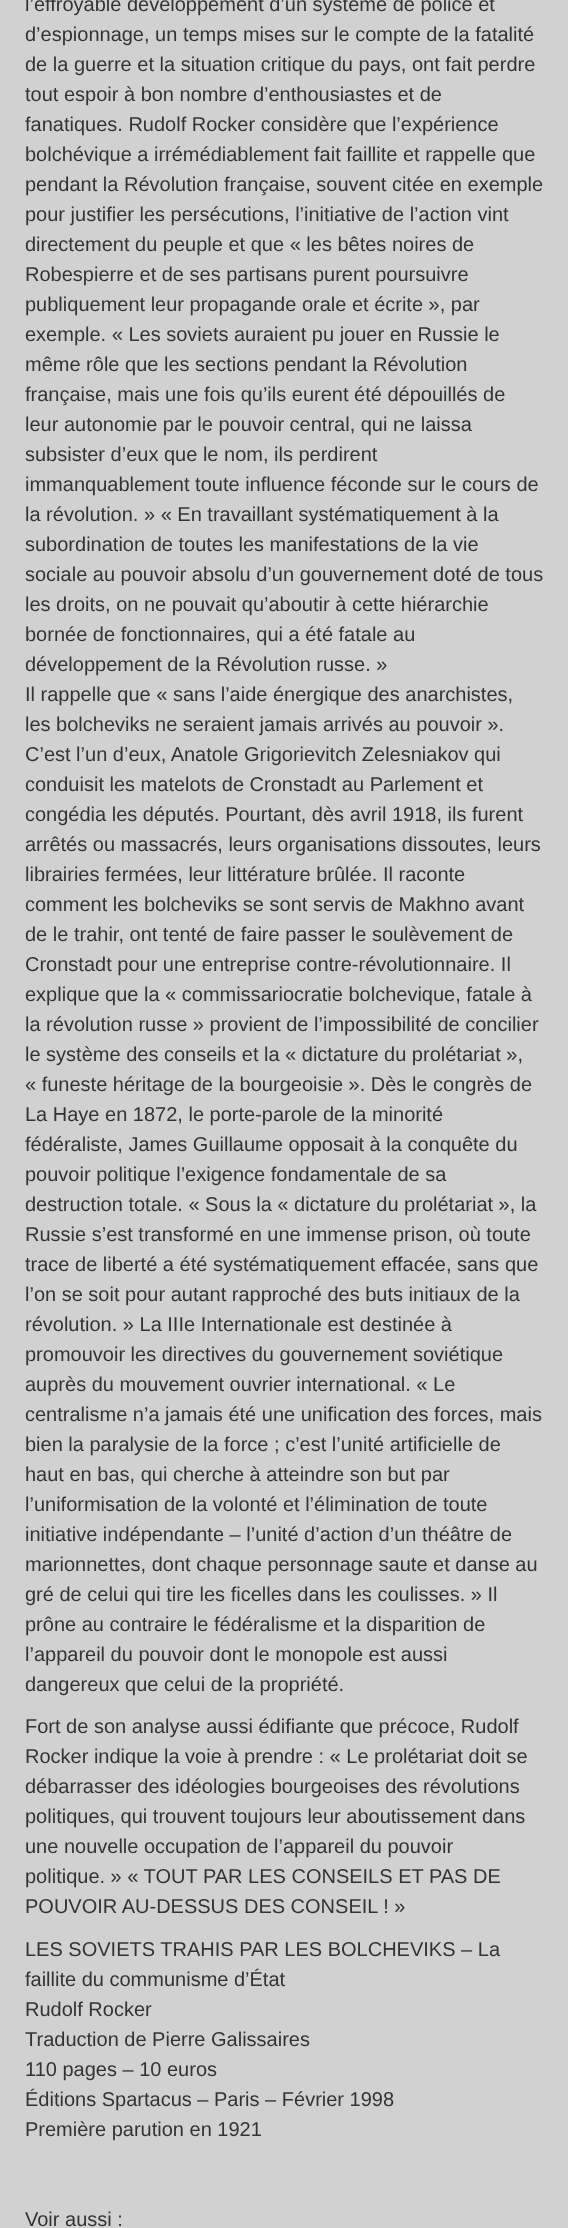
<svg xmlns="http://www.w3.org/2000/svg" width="568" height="2228">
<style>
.a{font:20px Liberation Sans;fill:#333}
</style>
<rect width="100%" height="100%" fill="#d1d1d1"/>
<text class="a" x="25" y="11">l’effroyable développement d’un système de police et</text>
<text class="a" x="25" y="41">d’espionnage, un temps mises sur le compte de la fatalité</text>
<text class="a" x="25" y="71">de la guerre et la situation critique du pays, ont fait perdre</text>
<text class="a" x="25" y="101">tout espoir à bon nombre d’enthousiastes et de</text>
<text class="a" x="25" y="131">fanatiques. Rudolf Rocker considère que l’expérience</text>
<text class="a" x="25" y="161">bolchévique a irrémédiablement fait faillite et rappelle que</text>
<text class="a" x="25" y="191">pendant la Révolution française, souvent citée en exemple</text>
<text class="a" x="25" y="221">pour justifier les persécutions, l’initiative de l’action vint</text>
<text class="a" x="25" y="251">directement du peuple et que « les bêtes noires de</text>
<text class="a" x="25" y="281">Robespierre et de ses partisans purent poursuivre</text>
<text class="a" x="25" y="311">publiquement leur propagande orale et écrite », par</text>
<text class="a" x="25" y="341">exemple. « Les soviets auraient pu jouer en Russie le</text>
<text class="a" x="25" y="371">même rôle que les sections pendant la Révolution</text>
<text class="a" x="25" y="401">française, mais une fois qu’ils eurent été dépouillés de</text>
<text class="a" x="25" y="431">leur autonomie par le pouvoir central, qui ne laissa</text>
<text class="a" x="25" y="461">subsister d’eux que le nom, ils perdirent</text>
<text class="a" x="25" y="491">immanquablement toute influence féconde sur le cours de</text>
<text class="a" x="25" y="521">la révolution. » « En travaillant systématiquement à la</text>
<text class="a" x="25" y="551">subordination de toutes les manifestations de la vie</text>
<text class="a" x="25" y="581">sociale au pouvoir absolu d’un gouvernement doté de tous</text>
<text class="a" x="25" y="611">les droits, on ne pouvait qu’aboutir à cette hiérarchie</text>
<text class="a" x="25" y="641">bornée de fonctionnaires, qui a été fatale au</text>
<text class="a" x="25" y="671">développement de la Révolution russe. »</text>
<text class="a" x="25" y="701">Il rappelle que « sans l’aide énergique des anarchistes,</text>
<text class="a" x="25" y="731">les bolcheviks ne seraient jamais arrivés au pouvoir ».</text>
<text class="a" x="25" y="761">C’est l’un d’eux, Anatole Grigorievitch Zelesniakov qui</text>
<text class="a" x="25" y="791">conduisit les matelots de Cronstadt au Parlement et</text>
<text class="a" x="25" y="821">congédia les députés. Pourtant, dès avril 1918, ils furent</text>
<text class="a" x="25" y="851">arrêtés ou massacrés, leurs organisations dissoutes, leurs</text>
<text class="a" x="25" y="881">librairies fermées, leur littérature brûlée. Il raconte</text>
<text class="a" x="25" y="911">comment les bolcheviks se sont servis de Makhno avant</text>
<text class="a" x="25" y="941">de le trahir, ont tenté de faire passer le soulèvement de</text>
<text class="a" x="25" y="971">Cronstadt pour une entreprise contre-révolutionnaire. Il</text>
<text class="a" x="25" y="1001">explique que la « commissariocratie bolchevique, fatale à</text>
<text class="a" x="25" y="1031">la révolution russe » provient de l’impossibilité de concilier</text>
<text class="a" x="25" y="1061">le système des conseils et la « dictature du prolétariat »,</text>
<text class="a" x="25" y="1091">« funeste héritage de la bourgeoisie ». Dès le congrès de</text>
<text class="a" x="25" y="1121">La Haye en 1872, le porte-parole de la minorité</text>
<text class="a" x="25" y="1151">fédéraliste, James Guillaume opposait à la conquête du</text>
<text class="a" x="25" y="1181">pouvoir politique l’exigence fondamentale de sa</text>
<text class="a" x="25" y="1211">destruction totale. « Sous la « dictature du prolétariat », la</text>
<text class="a" x="25" y="1241">Russie s’est transformé en une immense prison, où toute</text>
<text class="a" x="25" y="1271">trace de liberté a été systématiquement effacée, sans que</text>
<text class="a" x="25" y="1301">l’on se soit pour autant rapproché des buts initiaux de la</text>
<text class="a" x="25" y="1331">révolution. » La IIIe Internationale est destinée à</text>
<text class="a" x="25" y="1361">promouvoir les directives du gouvernement soviétique</text>
<text class="a" x="25" y="1391">auprès du mouvement ouvrier international. « Le</text>
<text class="a" x="25" y="1421">centralisme n’a jamais été une unification des forces, mais</text>
<text class="a" x="25" y="1451">bien la paralysie de la force ; c’est l’unité artificielle de</text>
<text class="a" x="25" y="1481">haut en bas, qui cherche à atteindre son but par</text>
<text class="a" x="25" y="1511">l’uniformisation de la volonté et l’élimination de toute</text>
<text class="a" x="25" y="1541">initiative indépendante – l’unité d’action d’un théâtre de</text>
<text class="a" x="25" y="1571">marionnettes, dont chaque personnage saute et danse au</text>
<text class="a" x="25" y="1601">gré de celui qui tire les ficelles dans les coulisses. » Il</text>
<text class="a" x="25" y="1631">prône au contraire le fédéralisme et la disparition de</text>
<text class="a" x="25" y="1661">l’appareil du pouvoir dont le monopole est aussi</text>
<text class="a" x="25" y="1691">dangereux que celui de la propriété.</text>
<text class="a" x="25" y="1733">Fort de son analyse aussi édifiante que précoce, Rudolf</text>
<text class="a" x="25" y="1763">Rocker indique la voie à prendre : « Le prolétariat doit se</text>
<text class="a" x="25" y="1793">débarrasser des idéologies bourgeoises des révolutions</text>
<text class="a" x="25" y="1823">politiques, qui trouvent toujours leur aboutissement dans</text>
<text class="a" x="25" y="1853">une nouvelle occupation de l’appareil du pouvoir</text>
<text class="a" x="25" y="1883">politique. » « TOUT PAR LES CONSEILS ET PAS DE</text>
<text class="a" x="25" y="1913">POUVOIR AU-DESSUS DES CONSEIL ! »</text>
<text class="a" x="25" y="1956">LES SOVIETS TRAHIS PAR LES BOLCHEVIKS – La</text>
<text class="a" x="25" y="1986">faillite du communisme d’État</text>
<text class="a" x="25" y="2016">Rudolf Rocker</text>
<text class="a" x="25" y="2046">Traduction de Pierre Galissaires</text>
<text class="a" x="25" y="2076">110 pages – 10 euros</text>
<text class="a" x="25" y="2106">Éditions Spartacus – Paris – Février 1998</text>
<text class="a" x="25" y="2136">Première parution en 1921</text>
<text class="a" x="25" y="2226">Voir aussi :</text>
</svg>
